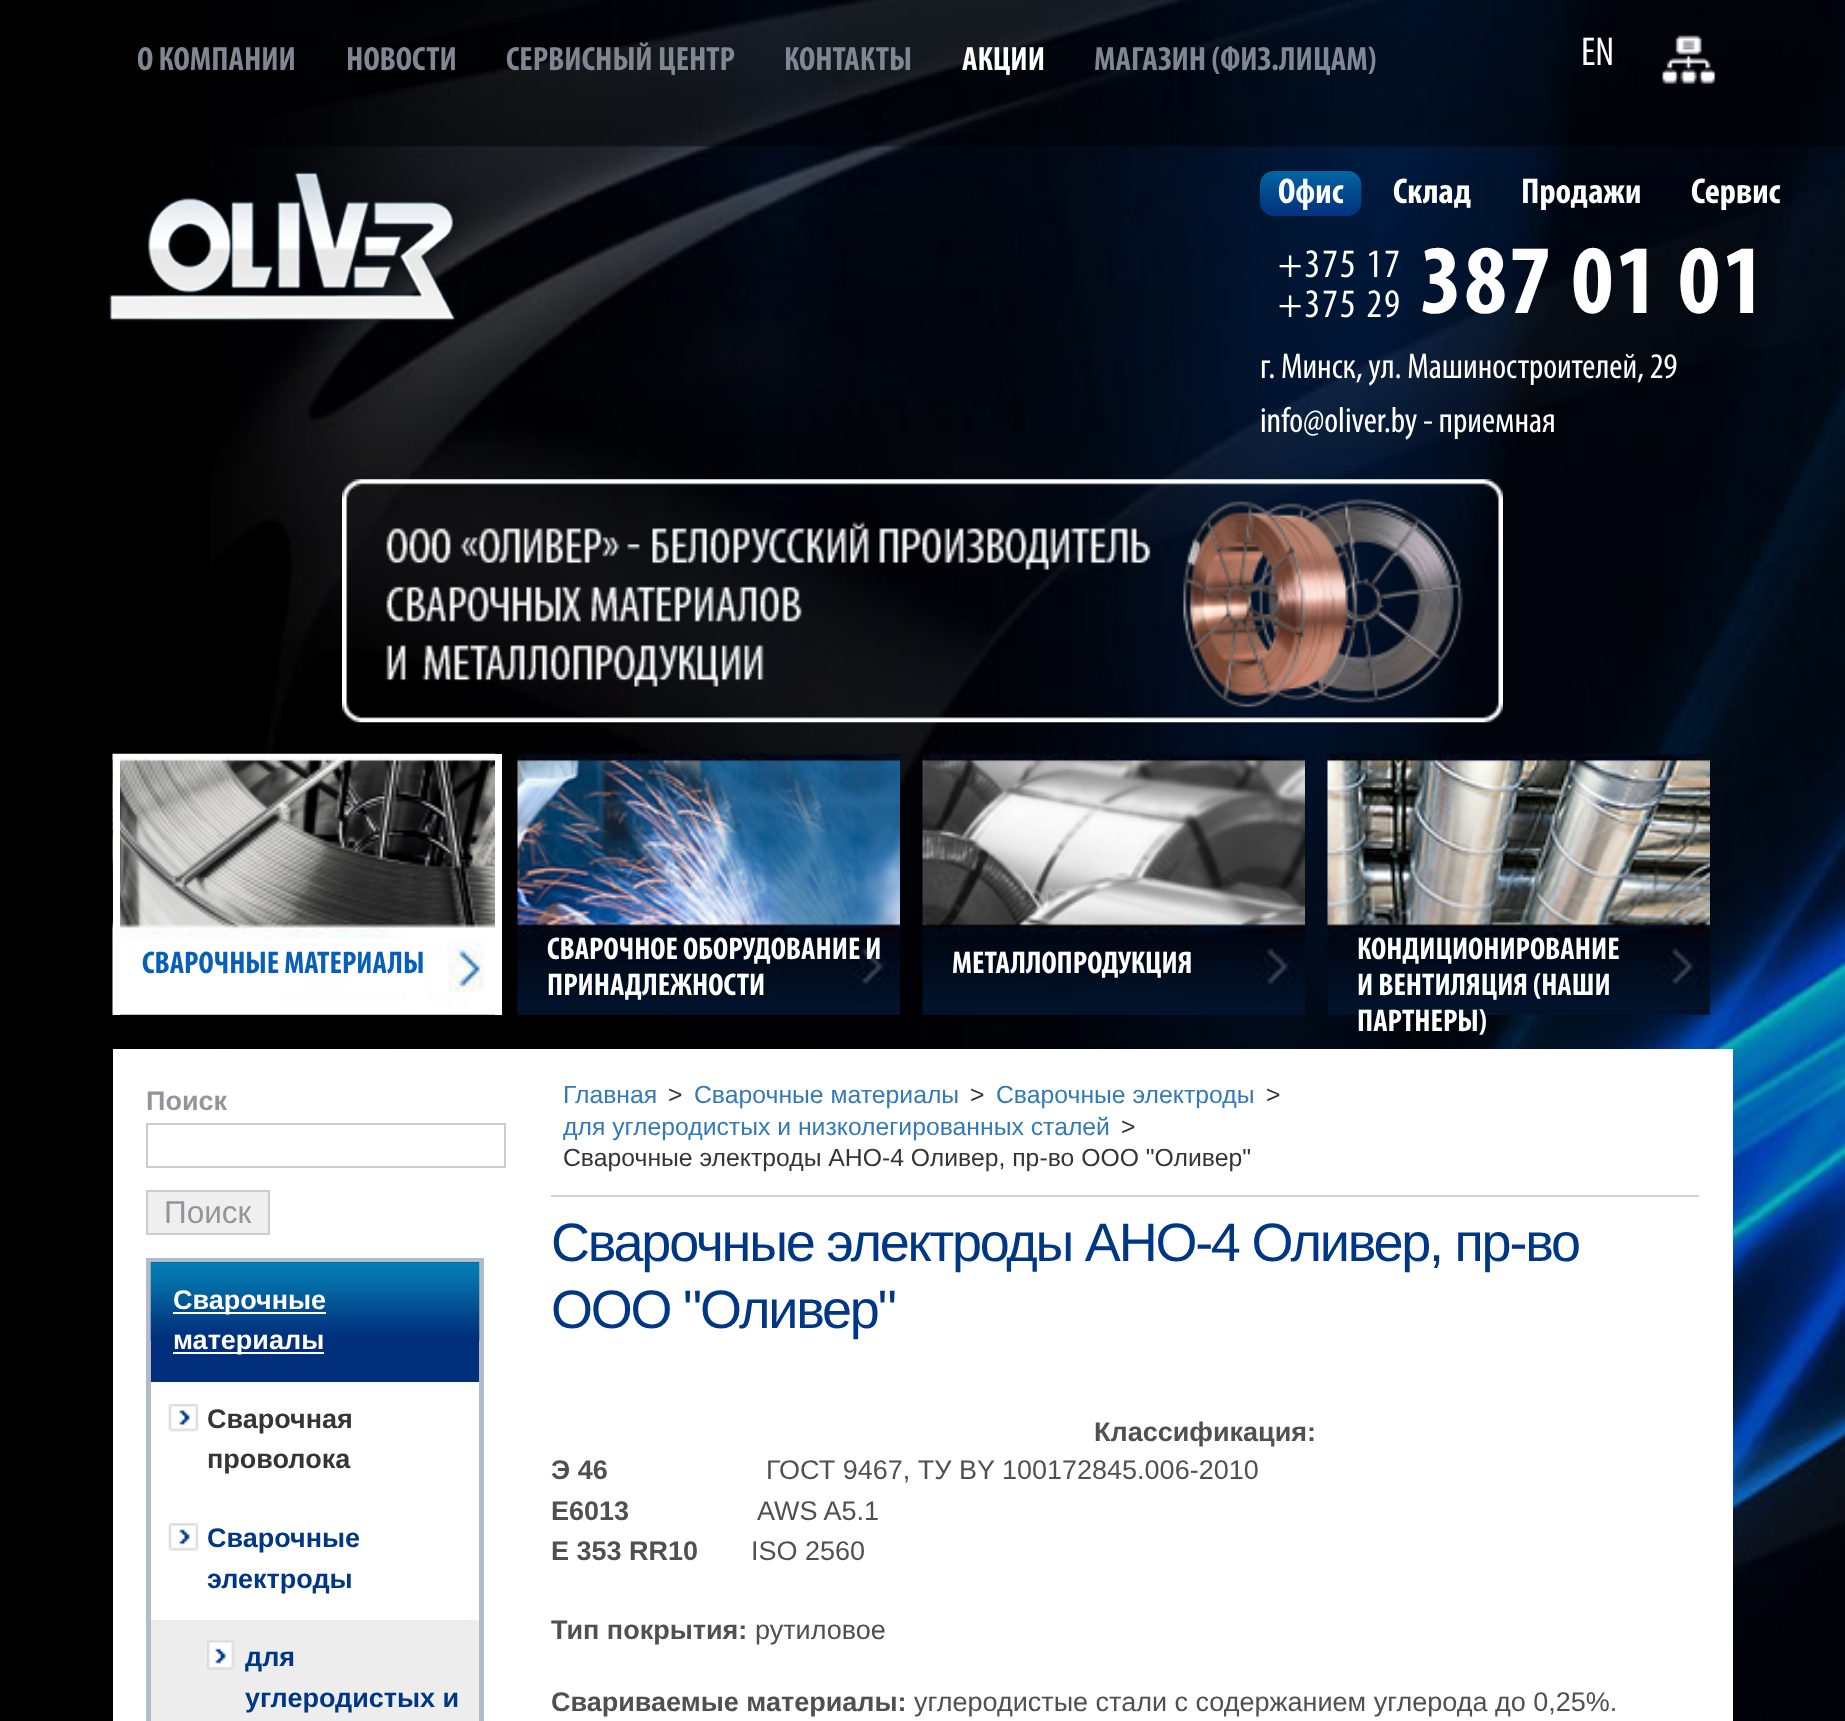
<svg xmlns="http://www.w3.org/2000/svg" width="1845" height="1721">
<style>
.a{font:bold 33.75px Myriad;fill:#808792}
.b{font:bold 33.75px Myriad;fill:#fff}
.c{font:40.5px Myriad;fill:#fff}
.d{font:bold 36px Myriad;fill:#fff}
.e{font:40.5px Myriad;letter-spacing:2.25px;fill:#fff}
.f{font:bold 99px Myriad;letter-spacing:2.25px;fill:#fff}
.g{font:36px Myriad;fill:#fff}
.h{font:bold 31.5px Myriad;fill:#065fb9}
.i{font:bold 31.5px Myriad;fill:#fff}
.j{font:bold 27px Liberation Sans;fill:#94949d}
.k{font:31.5px Liberation Sans;fill:#94949d}
.l{font:bold 27px Liberation Sans;fill:#fff}
.m{font:bold 27px Liberation Sans;fill:#353535}
.n{font:bold 27px Liberation Sans;fill:#003785}
.o{font:24.75px Liberation Sans;fill:#337ab7}
.p{font:24.75px Liberation Sans;fill:#353535}
.q{font:54px Liberation Sans;letter-spacing:-2.25px;fill:#003785}
.r{font:bold 27px Liberation Sans;fill:#505050}
.s{font:27px Liberation Sans;fill:#505050}
</style>
<rect width="100%" height="100%" fill="#000"/>
<image href="1.png" x="210" y="0" width="1635" height="1721"/>
<image href="2.png" x="1662" y="35" width="54" height="49"/>
<image href="3.png" x="107" y="171" width="349" height="152"/>
<image href="4.png" x="1260" y="171" width="102" height="45"/>
<image href="5.png" x="342" y="479" width="1161" height="244"/>
<image href="6.png" x="112" y="753" width="383" height="262"/>
<path fill="#fff" d="M495 754h7v261H495z"/>
<path fill="#fff" d="M113 754h7v261H113z"/>
<image href="7.png" x="517" y="753" width="383" height="262"/>
<image href="8.png" x="922" y="753" width="383" height="262"/>
<image href="9.png" x="1327" y="753" width="383" height="262"/>
<path fill="#fff" d="M113 1049h1620v672H113z"/>
<path fill="none" stroke="#ccc" stroke-width="2" d="M147 1124h358v43H147z"/>
<path fill="#efefef" stroke="#ccc" stroke-width="2" d="M147 1191h122v43H147z"/>
<path fill="none" stroke="#b1bbc9" stroke-width="5" d="M148.5 1260.5h333v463H148.5z"/>
<path fill="#012f7c" d="M151 1262h328v120H151z"/>
<image href="10.png" x="150" y="1262" width="330" height="79"/>
<path fill="#fff" d="M173 1312h153v2H173z"/>
<path fill="#fff" d="M173 1352h151v2H173z"/>
<image href="11.png" x="168" y="1404" width="30" height="28"/>
<image href="12.png" x="168" y="1523" width="30" height="28"/>
<path fill="#ededed" d="M151 1620h328v101H151z"/>
<image href="13.png" x="207" y="1640" width="28" height="30"/>
<path fill="#d1d1d1" d="M551 1195h1148v2H551z"/>
<text class="a" x="137" y="70">О КОМПАНИИ</text>
<text class="a" x="346" y="70">НОВОСТИ</text>
<text class="a" x="506" y="70">СЕРВИСНЫЙ ЦЕНТР</text>
<text class="a" x="784" y="70">КОНТАКТЫ</text>
<text class="b" x="962" y="70">АКЦИИ</text>
<text class="a" x="1094" y="70">МАГАЗИН (ФИЗ.ЛИЦАМ)</text>
<text class="c" x="1581" y="65">EN</text>
<text class="d" x="1278" y="203">Офис</text>
<text class="d" x="1393" y="203">Склад</text>
<text class="d" x="1521" y="203">Продажи</text>
<text class="d" x="1691" y="203">Сервис</text>
<text class="e" x="1278" y="277">+375 17</text>
<text class="e" x="1278" y="317">+375 29</text>
<text class="f" x="1420" y="313">387 01 01</text>
<text class="g" x="1260" y="378">г. Минск, ул. Машиностроителей, 29</text>
<text class="g" x="1260" y="432">info@oliver.by - приемная</text>
<text class="h" x="142" y="973">СВАРОЧНЫЕ МАТЕРИАЛЫ</text>
<text class="i" x="547" y="959">СВАРОЧНОЕ ОБОРУДОВАНИЕ И</text>
<text class="i" x="547" y="995">ПРИНАДЛЕЖНОСТИ</text>
<text class="i" x="952" y="973">МЕТАЛЛОПРОДУКЦИЯ</text>
<text class="i" x="1357" y="959">КОНДИЦИОНИРОВАНИЕ</text>
<text class="i" x="1357" y="995">И ВЕНТИЛЯЦИЯ (НАШИ</text>
<text class="i" x="1357" y="1031">ПАРТНЕРЫ)</text>
<text class="j" x="146" y="1110">Поиск</text>
<text class="k" x="164" y="1223">Поиск</text>
<text class="l" x="173" y="1309">Сварочные</text>
<text class="l" x="173" y="1349">материалы</text>
<text class="m" x="207" y="1428">Сварочная</text>
<text class="m" x="207" y="1468">проволока</text>
<text class="n" x="207" y="1547">Сварочные</text>
<text class="n" x="207" y="1588">электроды</text>
<text class="n" x="245" y="1666">для</text>
<text class="n" x="245" y="1707">углеродистых и</text>
<text class="o" x="563" y="1103">Главная</text>
<text class="p" x="668" y="1103">&gt;</text>
<text class="o" x="694" y="1103">Сварочные материалы</text>
<text class="p" x="970" y="1103">&gt;</text>
<text class="o" x="996" y="1103">Сварочные электроды</text>
<text class="p" x="1266" y="1103">&gt;</text>
<text class="o" x="563" y="1135">для углеродистых и низколегированных сталей</text>
<text class="p" x="1121" y="1135">&gt;</text>
<text class="p" x="563" y="1166">Сварочные электроды АНО-4 Оливер, пр-во ООО "Оливер"</text>
<text class="q" x="551" y="1261">Сварочные электроды АНО-4 Оливер, пр-во</text>
<text class="q" x="551" y="1328">ООО "Оливер"</text>
<text class="r" x="1094" y="1441">Классификация:</text>
<text class="r" x="551" y="1479">Э 46</text>
<text class="s" x="766" y="1479">ГОСТ 9467, ТУ BY 100172845.006-2010</text>
<text class="r" x="551" y="1520">E6013</text>
<text class="s" x="757" y="1520">AWS A5.1</text>
<text class="r" x="551" y="1560">Е 353 RR10</text>
<text class="s" x="751" y="1560">ISO 2560</text>
<text class="r" x="551" y="1639">Тип покрытия:</text>
<text class="s" x="755" y="1639">рутиловое</text>
<text class="r" x="551" y="1711">Свариваемые материалы:</text>
<text class="s" x="914" y="1711">углеродистые стали с содержанием углерода до 0,25%.</text>
</svg>
